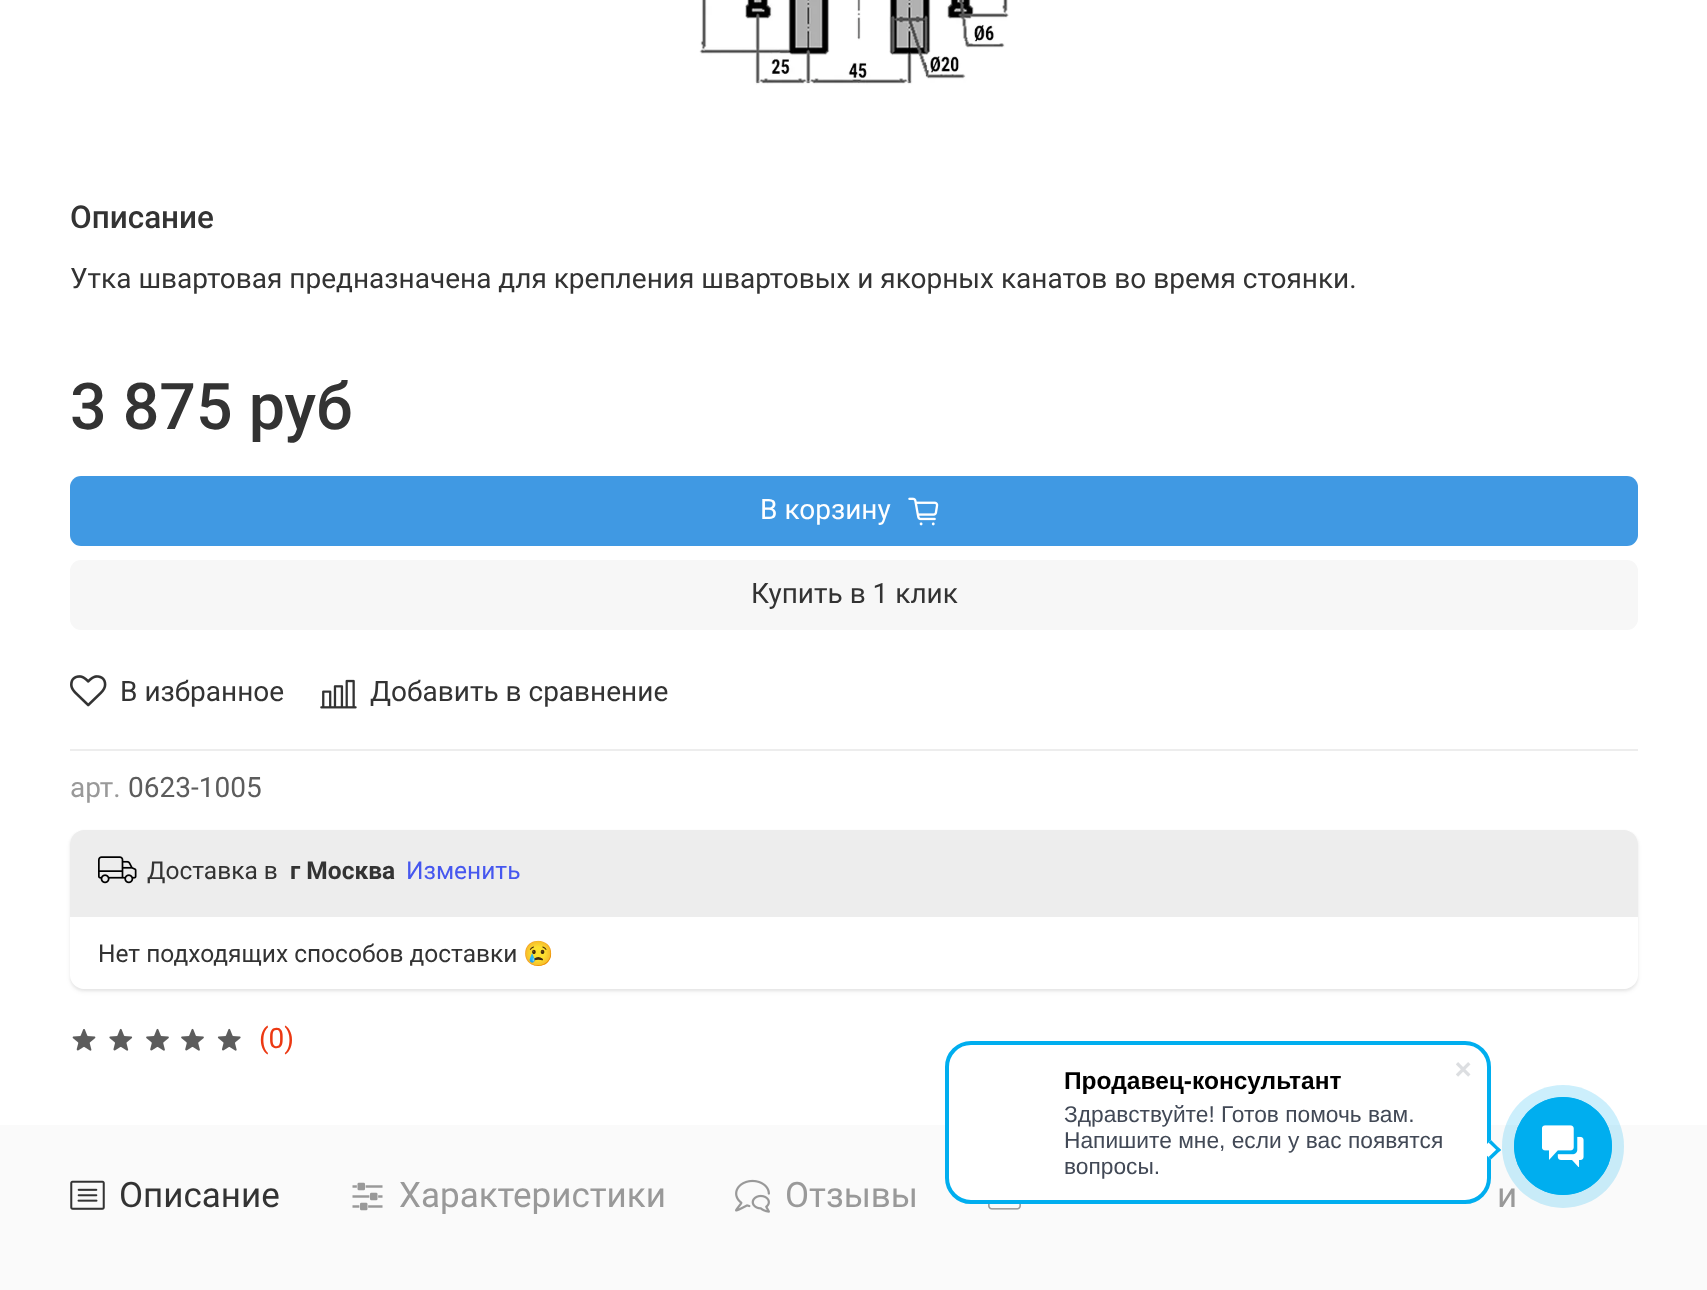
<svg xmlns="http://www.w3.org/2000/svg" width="1707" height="1290">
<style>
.a{font:500 31.5px Roboto;fill:#333}
.b{font:28px Roboto;fill:#333}
.c{font:500 64.5px Roboto;fill:#333}
.d{font:28px Roboto;fill:#fff}
.e{font:28px Roboto;fill:#999}
.f{font:28px Roboto;fill:#5c5c5c}
.g{font:24.5px Roboto;fill:#333}
.h{font:bold 24.5px Roboto;fill:#333}
.i{font:24.5px Roboto;fill:#4657ef}
.j{font:24.5px Noto Color Emoji;fill:#333}
.k{font:28px Roboto;fill:#ec3913}
.l{font:35px Roboto;fill:#333}
.m{font:35px Roboto;fill:#999}
.n{font:bold 24.5px Liberation Sans;fill:#000}
.o{font:22.75px Liberation Sans;fill:#424956}
</style>
<defs>
<clipPath id="clip1"><path d="M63 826h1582v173h-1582zm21 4h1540c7.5 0 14 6.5 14 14v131c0 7.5-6.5 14-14 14h-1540c-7.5 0-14-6.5-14-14v-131c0-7.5 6.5-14 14-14z" clip-rule="evenodd"/></clipPath>
<clipPath id="clip2"><path d="M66 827h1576v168h-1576zm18 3h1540c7.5 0 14 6.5 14 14v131c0 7.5-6.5 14-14 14h-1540c-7.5 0-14-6.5-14-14v-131c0-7.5 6.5-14 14-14z" clip-rule="evenodd"/></clipPath>
</defs>
<rect width="100%" height="100%" fill="#fff"/>
<image href="1.png" x="699" y="0" width="310" height="85"/>
<rect fill="#4099e3" x="70" y="476" width="1568" height="70" rx="11"/>
<image href="2.png" x="908" y="497" width="31" height="29"/>
<rect fill="#f7f7f7" x="70" y="560" width="1568" height="70" rx="11"/>
<image href="3.png" x="70" y="675" width="37" height="32"/>
<image href="4.png" x="320" y="679" width="37" height="30"/>
<path fill="#ededed" d="M70 749h1568v2H70z"/>
<g clip-path="url(#clip1)">
<rect fill="#0000000d" filter="blur(2px)" x="70" y="833" width="1568" height="159" rx="14"/>
</g>
<g clip-path="url(#clip2)">
<rect fill="#0000000d" filter="blur(1px)" x="70" y="831" width="1568" height="160" rx="14"/>
</g>
<path fill="#ededed" d="M84 830h1540c7.5 0 14 6.5 14 14v73h-1568v-73c0-7.5 6.5-14 14-14z"/>
<image href="5.png" x="98" y="856" width="39" height="28"/>
<image href="6.png" x="72" y="1029" width="24" height="22"/>
<image href="7.png" x="109" y="1028" width="24" height="23"/>
<image href="8.png" x="146" y="1028" width="23" height="23"/>
<image href="8.png" x="181" y="1028" width="23" height="23"/>
<image href="9.png" x="217" y="1028" width="24" height="23"/>
<path fill="#fafafa" d="M0 1125h1707v165H0z"/>
<image href="10.png" x="70" y="1180" width="35" height="30"/>
<image href="11.png" x="352" y="1182" width="31" height="29"/>
<image href="12.png" x="735" y="1179" width="35" height="34"/>
<image href="13.png" x="988" y="1204" width="33" height="6"/>
<rect fill="#fff" stroke="#00aeef" stroke-width="4" x="947" y="1043" width="542" height="159" rx="24"/>
<image href="14.png" x="1456" y="1062" width="15" height="15"/>
<path fill="#fff" d="M1481 1150l10-10l10 10l-10 9.5z"/>
<path fill="#00aeef" d="M1488.5 1142.5l2.5-2.5l10 10l-2.5 2z"/>
<path fill="#00aeef" d="M1488.5 1157l10-9.5l2.5 2.5l-10 9.5z"/>
<text class="a" x="70" y="228">Описание</text>
<text class="b" x="70" y="288">Утка швартовая предназначена для крепления швартовых и якорных канатов во время стоянки.</text>
<text class="c" x="70" y="429">3 875 руб</text>
<text class="d" x="760" y="519">В корзину</text>
<text class="b" x="751" y="603">Купить в 1 клик</text>
<text class="b" x="120" y="701">В избранное</text>
<text class="b" x="370" y="701">Добавить в сравнение</text>
<text class="e" x="70" y="797">арт.</text>
<text class="f" x="128" y="797">0623-1005</text>
<text class="g" x="147" y="879">Доставка в</text>
<text class="h" x="290" y="879">г Москва</text>
<text class="i" x="406" y="879">Изменить</text>
<text class="g" x="98" y="962">Нет подходящих способов доставки</text>
<text class="j" x="523" y="962">😢</text>
<text class="k" x="259" y="1048">(0)</text>
<text class="l" x="119" y="1207">Описание</text>
<text class="m" x="399" y="1207">Характеристики</text>
<text class="m" x="785" y="1207">Отзывы</text>
<text class="m" x="1497" y="1207">и</text>
<text class="n" x="1064" y="1089">Продавец-консультант</text>
<text class="o" x="1064" y="1122">Здравствуйте! Готов помочь вам.</text>
<text class="o" x="1064" y="1148">Напишите мне, если у вас появятся</text>
<text class="o" x="1064" y="1174">вопросы.</text>
<rect fill="#00aeef33" x="1502" y="1085" width="122" height="123" rx="61"/>
<circle fill="none" stroke="#00aeef" cx="1563" cy="1146" r="48.5"/>
<circle fill="#00aeef" cx="1563" cy="1146" r="49"/>
<image href="15.png" x="1542" y="1125" width="42" height="42"/>
</svg>
